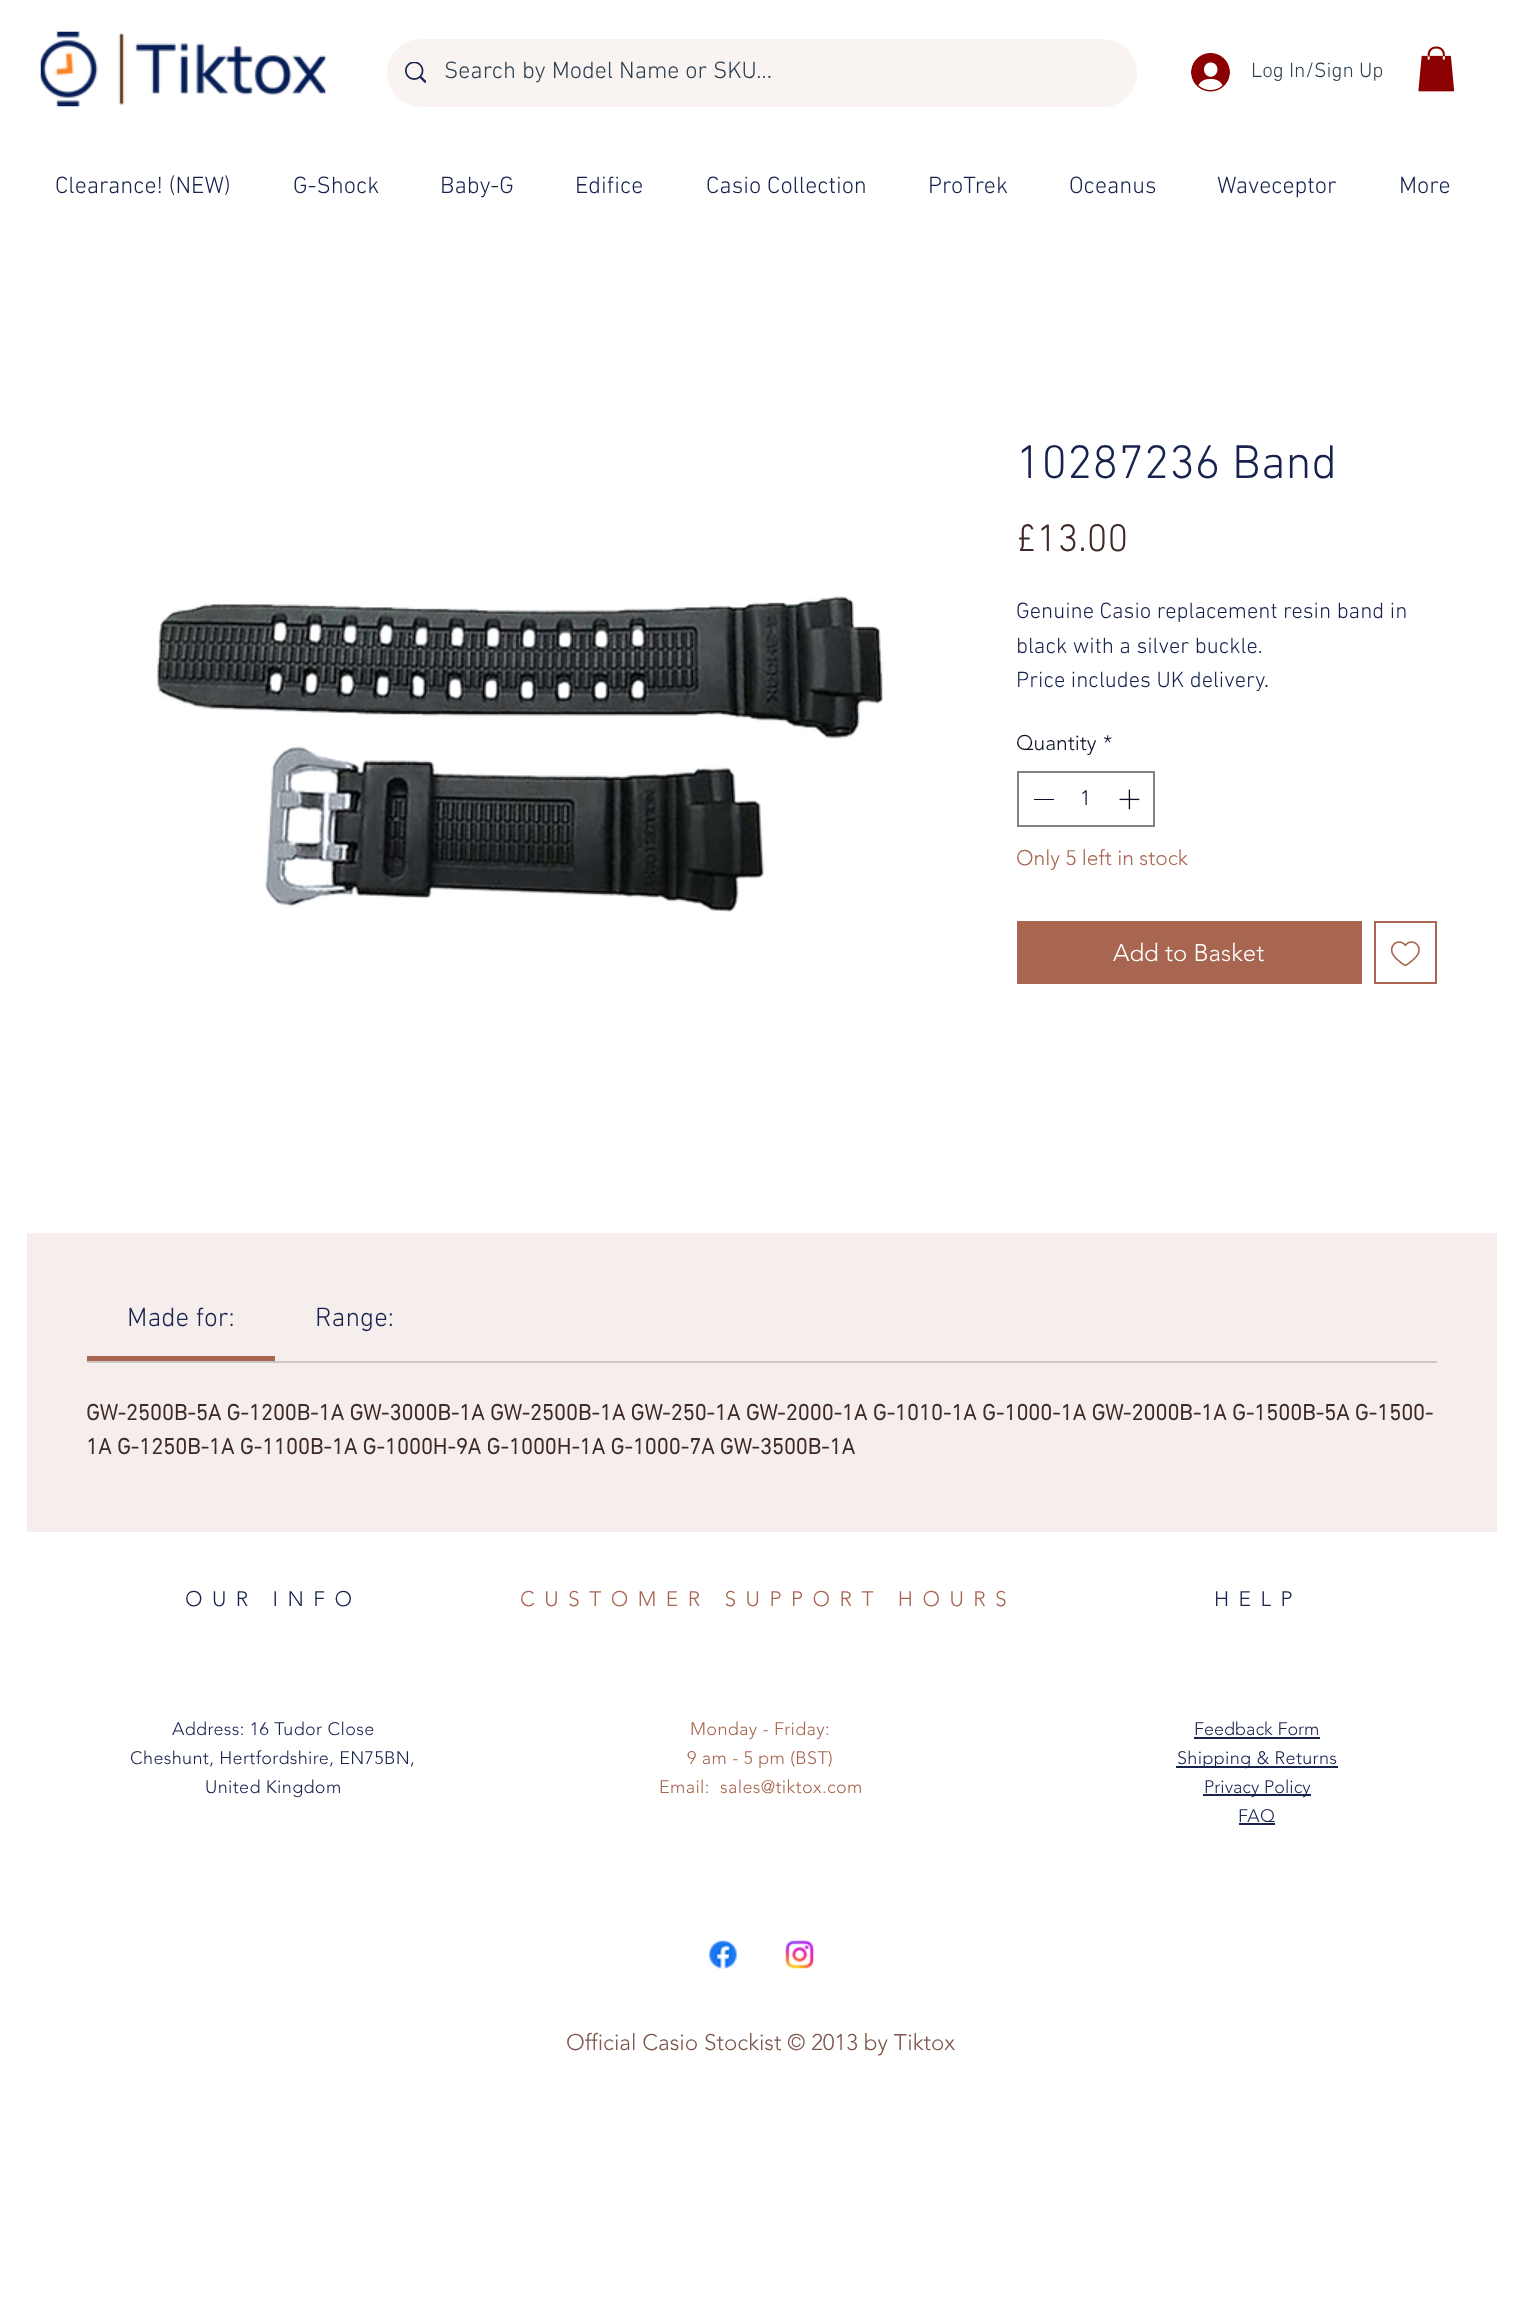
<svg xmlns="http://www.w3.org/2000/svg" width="1522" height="2314">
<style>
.a{font:300 24px 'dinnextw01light';fill:#2e4052}
.b{font:300 21px 'dinnextw01light';fill:#2e4052}
.c{font:300 24px 'dinnextw01light';fill:#17224d}
.d{font:300 48px 'dinnextw01light';fill:#17224d}
.e{font:300 39px 'dinnextw01light';fill:#3e2a24}
.f{font:300 22.5px 'dinnextw01light';fill:#17224d}
.g{font:300 21px 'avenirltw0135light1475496';fill:#0c1127}
.h{font:300 21px 'avenirltw0135light1475496';fill:#a86550}
.i{font:300 24px 'avenirltw0135light1475496';fill:#fff}
.j{font:300 27px 'dinnextw01light';fill:#17224d}
.k{font:bold 22.5px 'dinnextw01light';fill:#3e2a24}
.l{font:300 21px 'avenirltw0135light1475496';letter-spacing:9.45px;fill:#17224d}
.m{font:300 21px 'avenirltw0135light1475496';letter-spacing:9.45px;fill:#a86550}
.n{font:300 18px 'avenirltw0135light1475496';letter-spacing:0.35px;fill:#17224d}
.o{font:300 18px 'avenirltw0135light1475496';letter-spacing:0.35px;fill:#a86550}
.p{font:300 18px 'avenirltw0135light1475496';fill:#17224d}
.q{font:300 22.5px 'avenirltw0135light1475496';fill:#7b5549}
</style>
<rect width="100%" height="100%" fill="#fff"/>
<image href="1.png" x="40" y="31" width="286" height="76"/>
<rect fill="#f9f3f1" x="387" y="39" width="750" height="68" rx="34"/>
<image href="2.png" x="405" y="62" width="21" height="21"/>
<image href="3.png" x="1191" y="53" width="39" height="39"/>
<image href="4.png" x="1418" y="46" width="37" height="46"/>
<image href="5.png" x="157" y="596" width="726" height="317"/>
<path fill="none" stroke="#828283" stroke-width="2" d="M1018 772h136v54H1018z"/>
<path fill="#0c1127" d="M1034 799h20v1H1034z"/>
<image href="6.png" x="1119" y="789" width="21" height="21"/>
<path fill="#a86550" d="M1017 921h345v63H1017z"/>
<path fill="none" stroke="#a86550" stroke-width="2" d="M1375 922h61v61H1375z"/>
<image href="7.png" x="1390" y="941" width="30" height="26"/>
<path fill="#f5eeec" d="M27 1233h1470v299H27z"/>
<path fill="#cdc8c6" d="M87 1361h1350v2H87z"/>
<path fill="#a86550" d="M87 1356h188v5H87z"/>
<path fill="#17224d" d="M1194 1737h126v2H1194z"/>
<path fill="#17224d" d="M1176 1766h162v2H1176z"/>
<path fill="#17224d" d="M1203 1794h108v2H1203z"/>
<path fill="#17224d" d="M1239 1823h36v2H1239z"/>
<image href="8.png" x="708" y="1939" width="30" height="30"/>
<image href="9.png" x="785" y="1939" width="29" height="30"/>
<text class="a" x="444" y="78">Search by Model Name or SKU...</text>
<text class="b" x="1251" y="77">Log In/Sign Up</text>
<text class="c" x="55" y="193">Clearance! (NEW)</text>
<text class="c" x="293" y="193">G-Shock</text>
<text class="c" x="440" y="193">Baby-G</text>
<text class="c" x="575" y="193">Edifice</text>
<text class="c" x="706" y="193">Casio Collection</text>
<text class="c" x="928" y="193">ProTrek</text>
<text class="c" x="1069" y="193">Oceanus</text>
<text class="c" x="1217" y="193">Waveceptor</text>
<text class="c" x="1399" y="193">More</text>
<text class="d" x="1016" y="478">10287236 Band</text>
<text class="e" x="1016" y="551">£13.00</text>
<text class="f" x="1016" y="618">Genuine Casio replacement resin band in</text>
<text class="f" x="1016" y="653">black with a silver buckle.</text>
<text class="f" x="1016" y="687">Price includes UK delivery.</text>
<text class="g" x="1016" y="750">Quantity</text>
<text class="g" x="1103" y="750">*</text>
<text class="g" x="1080" y="805">1</text>
<text class="h" x="1016" y="865">Only 5 left in stock</text>
<text class="i" x="1113" y="961">Add to Basket</text>
<text class="j" x="127" y="1326">Made for:</text>
<text class="j" x="315" y="1326">Range:</text>
<text class="k" x="86" y="1420">GW-2500B-5A G-1200B-1A GW-3000B-1A GW-2500B-1A GW-250-1A GW-2000-1A G-1010-1A G-1000-1A GW-2000B-1A G-1500B-5A G-1500-</text>
<text class="k" x="86" y="1454">1A G-1250B-1A G-1100B-1A G-1000H-9A G-1000H-1A G-1000-7A GW-3500B-1A</text>
<text class="l" x="185" y="1606">OUR INFO</text>
<text class="m" x="520" y="1606">CUSTOMER SUPPORT HOURS</text>
<text class="l" x="1214" y="1606">HELP</text>
<text class="n" x="172" y="1735">Address: 16 Tudor Close</text>
<text class="n" x="130" y="1764">Cheshunt, Hertfordshire, EN75BN,</text>
<text class="n" x="205" y="1793">United Kingdom</text>
<text class="o" x="690" y="1735">Monday - Friday:</text>
<text class="o" x="687" y="1764">9 am - 5 pm (BST)</text>
<text class="o" x="659" y="1793">Email:</text>
<text class="o" x="720" y="1793">sales@tiktox.com</text>
<text class="p" x="1194" y="1735">Feedback Form</text>
<text class="n" x="1177" y="1764">Shipping &amp; Returns</text>
<text class="p" x="1204" y="1793">Privacy Policy</text>
<text class="n" x="1238" y="1822">FAQ</text>
<text class="q" x="566" y="2050">Official Casio Stockist © 2013 by Tiktox</text>
</svg>
